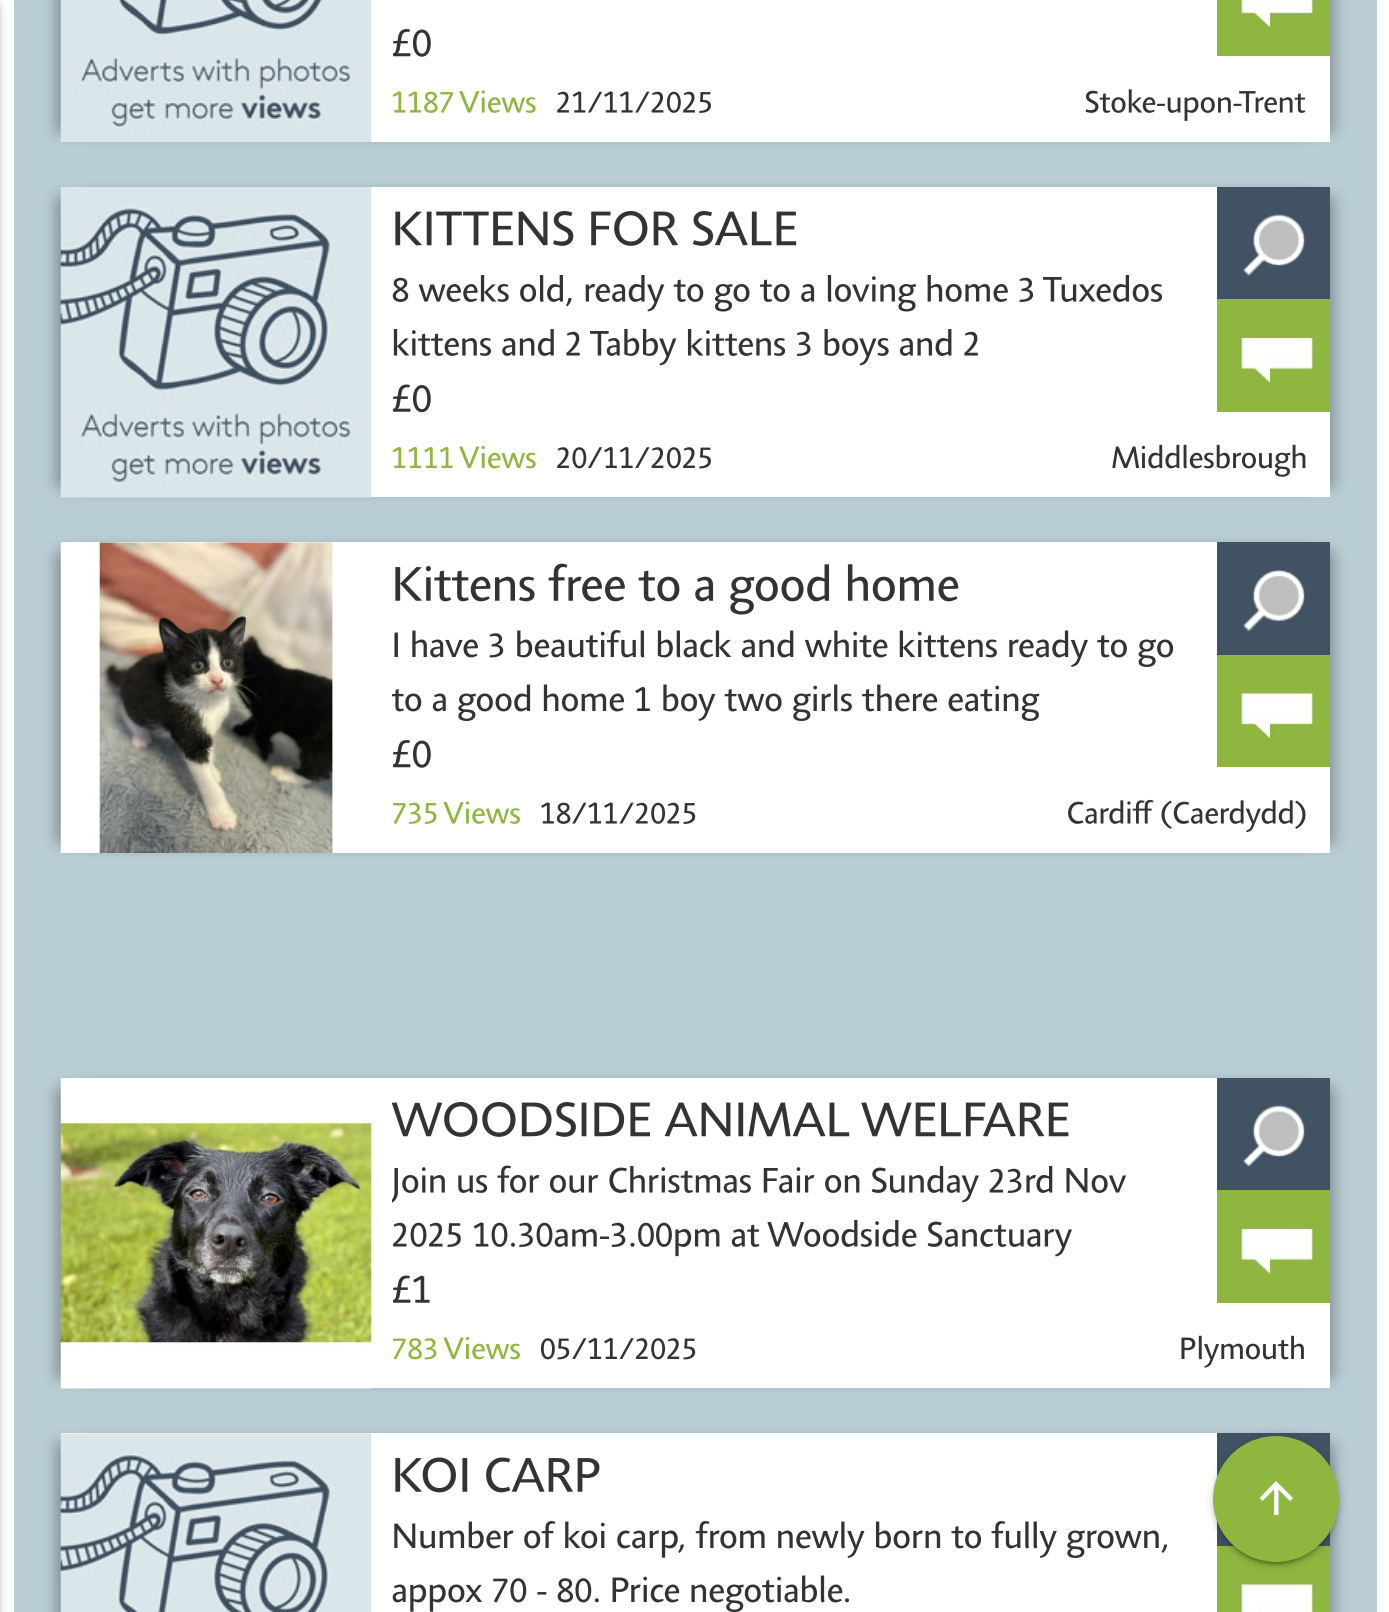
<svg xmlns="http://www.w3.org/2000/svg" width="1389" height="1612">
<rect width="100%" height="100%" fill="#fff"/>
<path fill="#b9cdd4" d="M14 0h1363v1612H14z"/>
<path fill="#0000001f" filter="blur(5.5px)" d="M-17 2h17v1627H-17z"/>
<path fill="#00000024" filter="blur(2px)" d="M-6 5h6v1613H-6z"/>
<path fill="#0000004d" filter="blur(7px)" d="M56 -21h1251v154H56z"/>
<path fill="#0000004d" filter="blur(7px)" d="M83 -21h1251v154H83z"/>
<path fill="#fff" d="M371 0h959v142H371z"/>
<image href="1.png" x="60" y="0" width="312" height="142"/>
<path fill="#8eb641" d="M1217 41h113v15H1217z"/>
<path fill="#8fb63e" d="M1217 0h113v41H1217z"/>
<image href="2.png" x="1226" y="0" width="104" height="41"/>
<image href="3.png" x="393" y="29" width="38" height="28"/>
<image href="4.png" x="392" y="91" width="61" height="22"/>
<image href="5.png" x="459" y="90" width="77" height="23"/>
<image href="6.png" x="557" y="91" width="154" height="22"/>
<image href="7.png" x="1085" y="89" width="221" height="32"/>
<path fill="#0000004d" filter="blur(7px)" d="M56 196h1251v292H56z"/>
<path fill="#0000004d" filter="blur(7px)" d="M83 196h1251v292H83z"/>
<path fill="#fff" d="M371 187h959v310H371z"/>
<image href="8.png" x="60" y="187" width="312" height="311"/>
<path fill="#415263" d="M1217 187h113v112H1217z"/>
<image href="9.png" x="1243" y="214" width="62" height="62"/>
<path fill="#8eb641" d="M1217 299h113v113H1217z"/>
<path fill="#8fb63e" d="M1217 315h113v81H1217z"/>
<image href="10.png" x="1226" y="315" width="104" height="81"/>
<image href="11.png" x="395" y="211" width="402" height="35"/>
<image href="12.png" x="392" y="275" width="771" height="37"/>
<image href="13.png" x="393" y="329" width="161" height="27"/>
<image href="14.png" x="566" y="329" width="412" height="37"/>
<image href="15.png" x="393" y="384" width="38" height="29"/>
<image href="16.png" x="392" y="446" width="61" height="22"/>
<image href="17.png" x="459" y="445" width="77" height="24"/>
<image href="18.png" x="557" y="446" width="154" height="23"/>
<image href="19.png" x="1112" y="444" width="194" height="33"/>
<path fill="#0000004d" filter="blur(7px)" d="M56 551h1251v293H56z"/>
<path fill="#0000004d" filter="blur(7px)" d="M83 551h1251v293H83z"/>
<path fill="#fff" d="M61 542h1269v311H61z"/>
<image href="20.png" x="60" y="542" width="273" height="311"/>
<path fill="#415263" d="M1217 542h113v113H1217z"/>
<image href="21.png" x="1243" y="569" width="62" height="63"/>
<path fill="#8eb641" d="M1217 655h113v112H1217z"/>
<path fill="#8fb63e" d="M1217 671h113v81H1217z"/>
<image href="22.png" x="1226" y="671" width="104" height="81"/>
<image href="23.png" x="395" y="563" width="564" height="52"/>
<image href="24.png" x="394" y="630" width="780" height="37"/>
<image href="25.png" x="392" y="684" width="648" height="37"/>
<image href="3.png" x="393" y="740" width="38" height="28"/>
<image href="26.png" x="393" y="802" width="44" height="22"/>
<image href="27.png" x="443" y="801" width="77" height="23"/>
<image href="28.png" x="541" y="802" width="155" height="22"/>
<image href="29.png" x="1068" y="799" width="238" height="34"/>
<path fill="#0000004d" filter="blur(7px)" d="M56 1087h1251v292H56z"/>
<path fill="#0000004d" filter="blur(7px)" d="M83 1087h1251v292H83z"/>
<path fill="#fff" d="M371 1078h959v310H371z"/>
<image href="30.png" x="60" y="1078" width="312" height="311"/>
<path fill="#415263" d="M1217 1078h113v112H1217z"/>
<image href="9.png" x="1243" y="1105" width="62" height="62"/>
<path fill="#8eb641" d="M1217 1190h113v113H1217z"/>
<path fill="#8fb63e" d="M1217 1206h113v81H1217z"/>
<image href="10.png" x="1226" y="1206" width="104" height="81"/>
<image href="31.png" x="392" y="1102" width="677" height="35"/>
<image href="32.png" x="392" y="1165" width="735" height="38"/>
<image href="33.png" x="393" y="1222" width="367" height="35"/>
<image href="34.png" x="767" y="1220" width="305" height="37"/>
<image href="35.png" x="393" y="1275" width="37" height="28"/>
<image href="36.png" x="393" y="1338" width="44" height="22"/>
<image href="37.png" x="443" y="1336" width="77" height="24"/>
<image href="38.png" x="540" y="1337" width="156" height="23"/>
<image href="39.png" x="1181" y="1335" width="123" height="33"/>
<path fill="#0000004d" filter="blur(7px)" d="M56 1442h1251v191H56z"/>
<path fill="#0000004d" filter="blur(7px)" d="M83 1442h1251v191H83z"/>
<path fill="#fff" d="M61 1433h1156v179H61z"/>
<image href="40.png" x="60" y="1433" width="312" height="179"/>
<image href="41.png" x="395" y="1457" width="205" height="36"/>
<image href="42.png" x="394" y="1521" width="774" height="37"/>
<image href="43.png" x="392" y="1578" width="207" height="34"/>
<image href="44.png" x="612" y="1575" width="237" height="37"/>
<path fill="#415263" d="M1217 1433h113v113H1217z"/>
<path fill="#8eb641" d="M1217 1546h113v16H1217z"/>
<path fill="#8fb63e" d="M1217 1562h113v50H1217z"/>
<image href="45.png" x="1226" y="1562" width="104" height="50"/>
<rect fill="#00000033" filter="blur(1px)" x="1217" y="1447" width="117" height="117" rx="58.5"/>
<rect fill="#0000001f" filter="blur(5.5px)" x="1213" y="1438" width="126" height="126" rx="63"/>
<rect fill="#00000024" filter="blur(2px)" x="1213" y="1440" width="126" height="126" rx="63"/>
<circle fill="#8fb63e" cx="1276" cy="1499" r="63"/>
<path fill="#fff" d="M1259.5 1498l16.5-17l17 17l-3 3l-11.5-11.5v25.5h-4.5v-25.5l-11.5 11.5z"/>
</svg>
